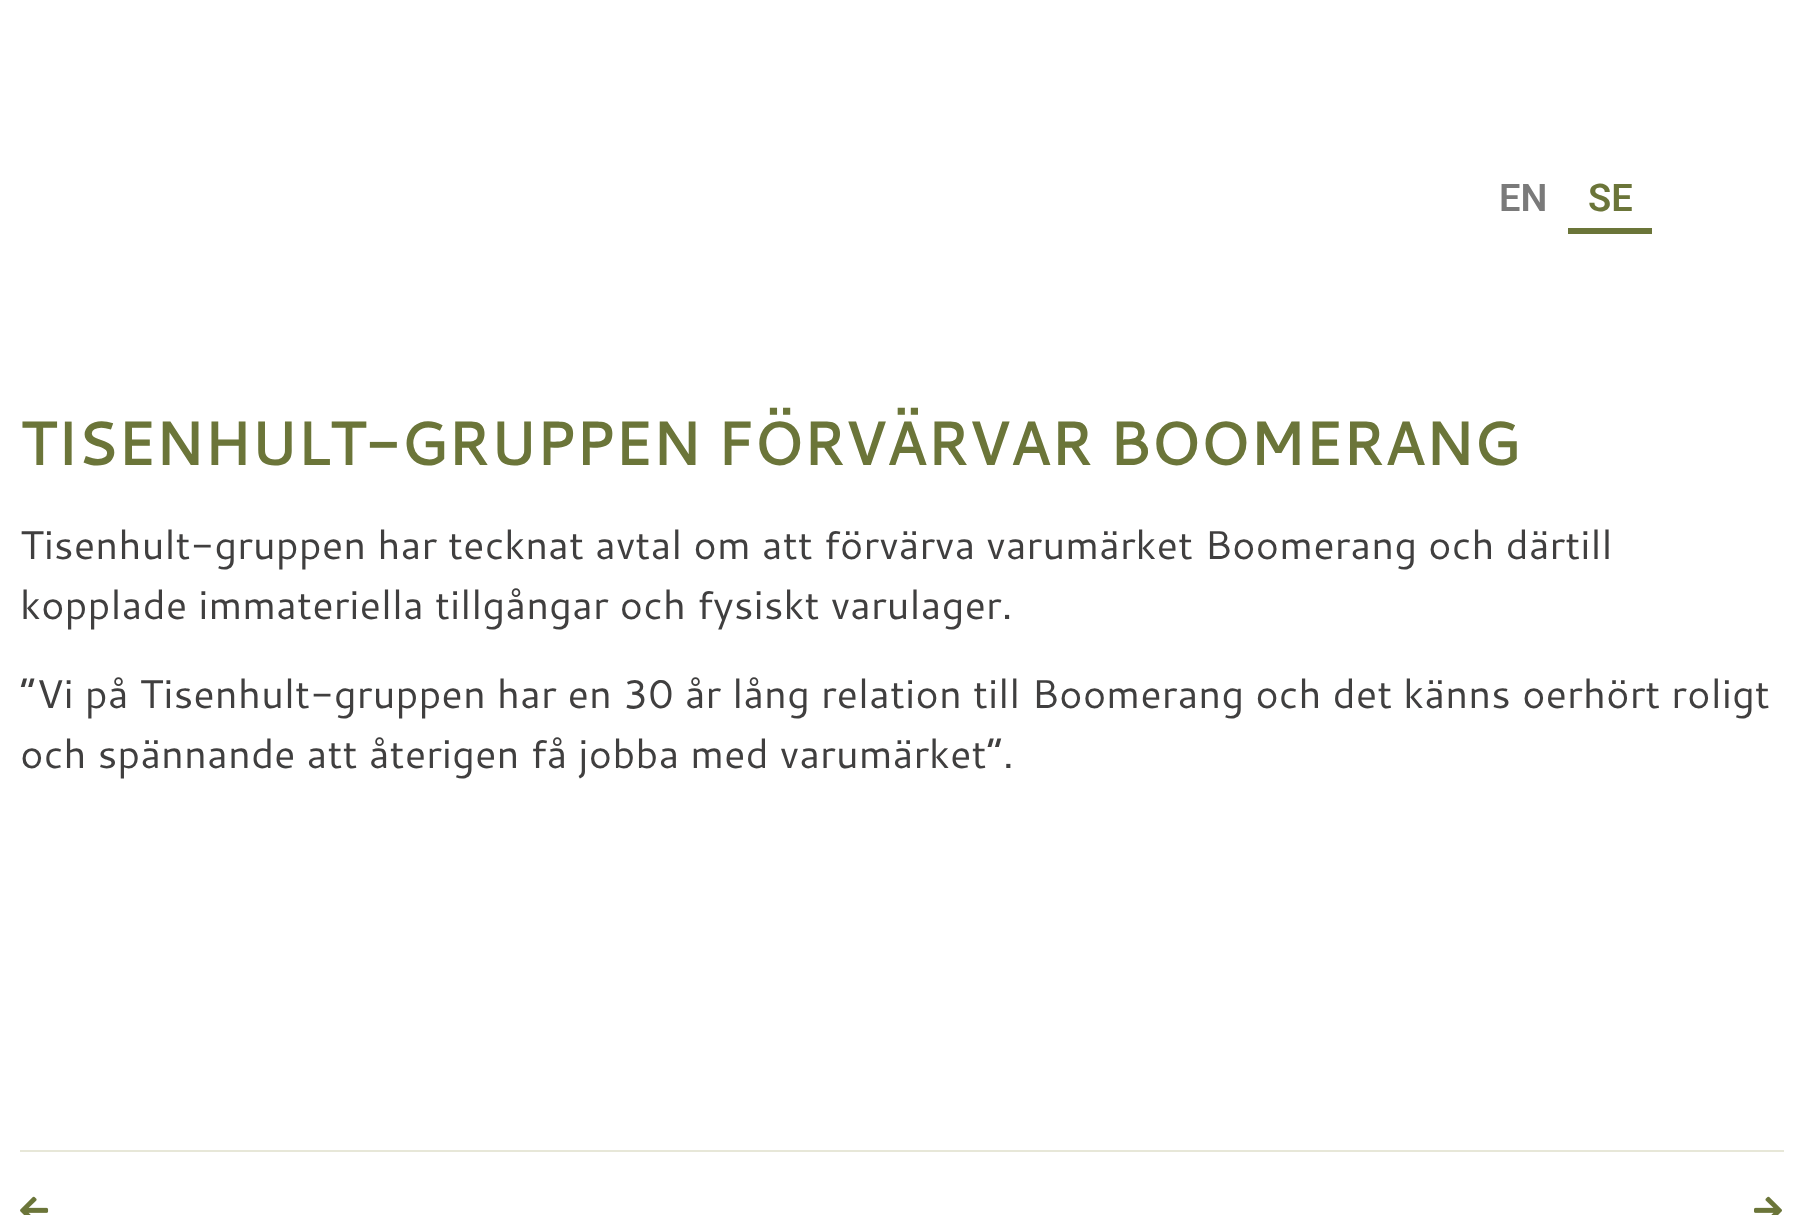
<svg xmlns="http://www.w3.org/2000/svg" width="1803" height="1215">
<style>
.a{font:600 38px Roboto;fill:#7a7a7a}
.b{font:600 38px Roboto;fill:#6b7539}
.c{font:bold 60px Cantarell;fill:#6b7539}
.d{font:40px Cantarell;fill:#403f3f}
</style>
<rect width="100%" height="100%" fill="#fff"/>
<path fill="#6b7539" d="M1568 228h84v6H1568z"/>
<path fill="#e7e7d8" d="M20 1150h1764v2H20z"/>
<image href="1.png" x="20" y="1196" width="29" height="19"/>
<image href="2.png" x="1754" y="1196" width="28" height="19"/>
<text class="a" x="1499" y="211">EN</text>
<text class="b" x="1588" y="211">SE</text>
<text class="c" x="20" y="465">TISENHULT-GRUPPEN FÖRVÄRVAR BOOMERANG</text>
<text class="d" x="20" y="559">Tisenhult-gruppen har tecknat avtal om att förvärva varumärket Boomerang och därtill</text>
<text class="d" x="20" y="619">kopplade immateriella tillgångar och fysiskt varulager.</text>
<text class="d" x="20" y="708">”Vi på Tisenhult-gruppen har en 30 år lång relation till Boomerang och det känns oerhört roligt</text>
<text class="d" x="20" y="768">och spännande att återigen få jobba med varumärket”.</text>
</svg>
